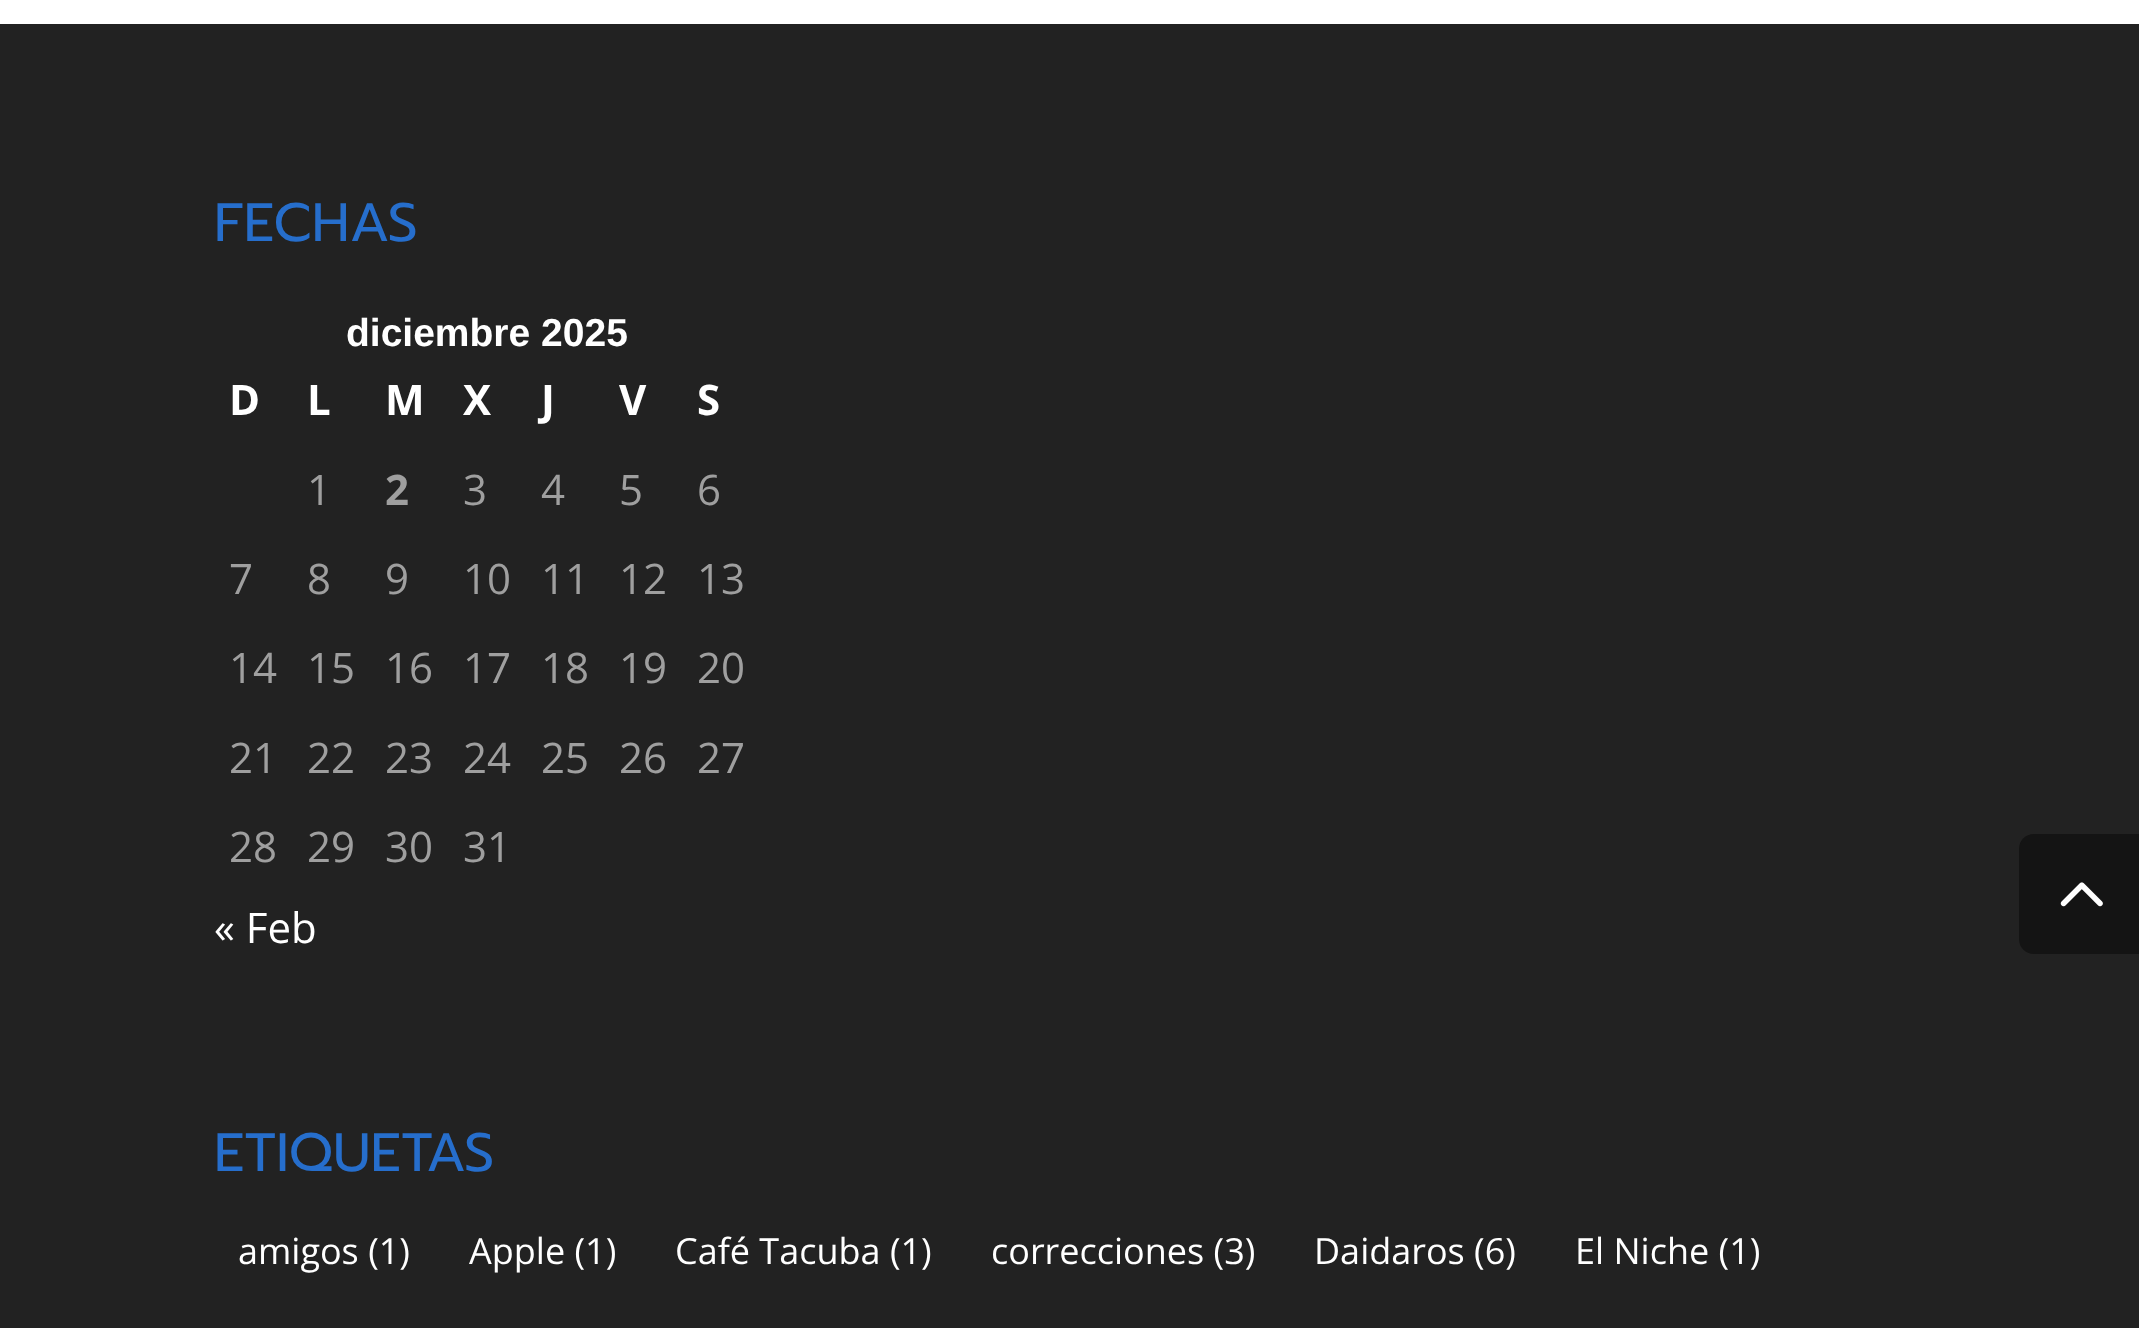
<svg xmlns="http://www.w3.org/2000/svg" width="2139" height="1328">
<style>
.a{font:54px Prompt;fill:#266ecc}
.b{font:bold 39px Liberation Sans;fill:#fff}
.c{font:bold 42px Open Sans;fill:#fff}
.d{font:42px Open Sans;fill:#9f9f9f}
.e{font:bold 42px Open Sans;fill:#9f9f9f}
.f{font:42px Open Sans;fill:#fff}
.g{font:36px Open Sans;fill:#fff}
</style>
<rect width="100%" height="100%" fill="#fff"/>
<path fill="#222" d="M0 24h2139v1304H0z"/>
<path fill="#141414" d="M2034 834h105v120h-105c-8.5 0-15-6.5-15-15v-90c0-8.5 6.5-15 15-15z"/>
<image href="1.png" x="2060" y="882" width="43" height="25"/>
<text class="a" x="214" y="241">FECHAS</text>
<text class="b" x="346" y="346">diciembre 2025</text>
<text class="c" x="229" y="415">D</text>
<text class="c" x="307" y="415">L</text>
<text class="c" x="385" y="415">M</text>
<text class="c" x="463" y="415">X</text>
<text class="c" x="541" y="415">J</text>
<text class="c" x="619" y="415">V</text>
<text class="c" x="697" y="415">S</text>
<text class="d" x="307" y="505">1</text>
<text class="e" x="385" y="505">2</text>
<text class="d" x="463" y="505">3</text>
<text class="d" x="541" y="505">4</text>
<text class="d" x="619" y="505">5</text>
<text class="d" x="697" y="505">6</text>
<text class="d" x="229" y="594">7</text>
<text class="d" x="307" y="594">8</text>
<text class="d" x="385" y="594">9</text>
<text class="d" x="463" y="594">10</text>
<text class="d" x="541" y="594">11</text>
<text class="d" x="619" y="594">12</text>
<text class="d" x="697" y="594">13</text>
<text class="d" x="229" y="683">14</text>
<text class="d" x="307" y="683">15</text>
<text class="d" x="385" y="683">16</text>
<text class="d" x="463" y="683">17</text>
<text class="d" x="541" y="683">18</text>
<text class="d" x="619" y="683">19</text>
<text class="d" x="697" y="683">20</text>
<text class="d" x="229" y="773">21</text>
<text class="d" x="307" y="773">22</text>
<text class="d" x="385" y="773">23</text>
<text class="d" x="463" y="773">24</text>
<text class="d" x="541" y="773">25</text>
<text class="d" x="619" y="773">26</text>
<text class="d" x="697" y="773">27</text>
<text class="d" x="229" y="862">28</text>
<text class="d" x="307" y="862">29</text>
<text class="d" x="385" y="862">30</text>
<text class="d" x="463" y="862">31</text>
<text class="f" x="214" y="943">« Feb</text>
<text class="a" x="214" y="1171">ETIQUETAS</text>
<text class="g" x="238" y="1264">amigos (1)</text>
<text class="g" x="469" y="1264">Apple (1)</text>
<text class="g" x="675" y="1264">Café Tacuba (1)</text>
<text class="g" x="991" y="1264">correcciones (3)</text>
<text class="g" x="1314" y="1264">Daidaros (6)</text>
<text class="g" x="1575" y="1264">El Niche (1)</text>
</svg>
